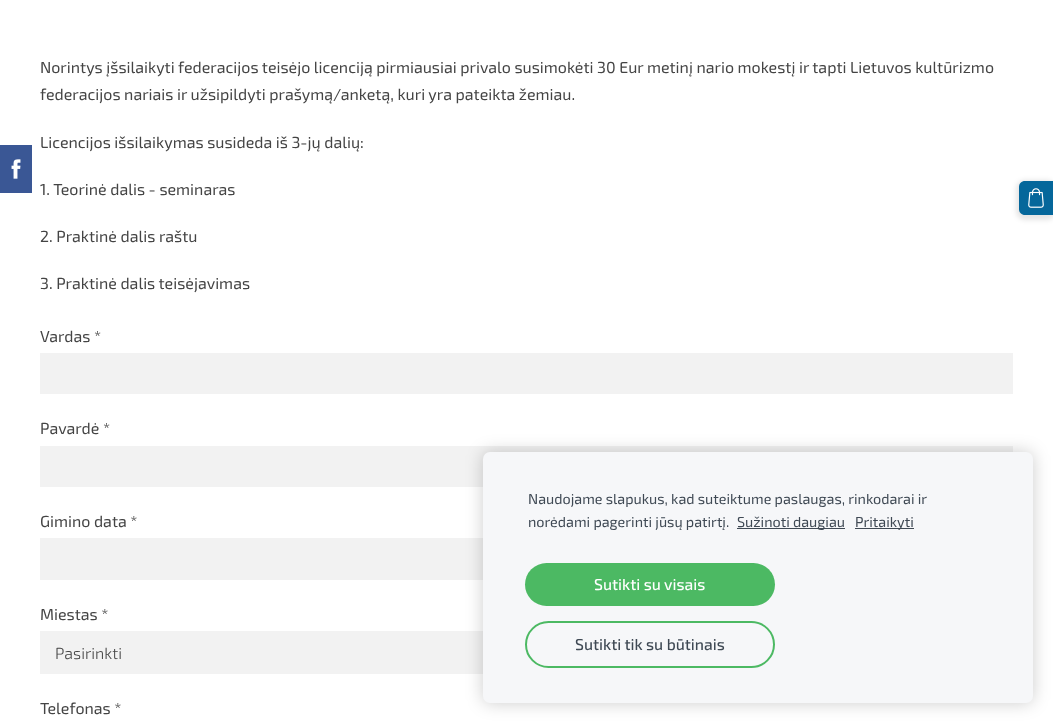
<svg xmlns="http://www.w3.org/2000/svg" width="1053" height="723">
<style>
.a{font:16px 'Exo 2';fill:#444}
.b{font:300 16px 'Exo 2';fill:#444}
.c{font:14.4px 'Exo 2';fill:#3f4954}
.d{font:500 15.75px 'Exo 2';fill:#fff}
.e{font:500 15.75px 'Exo 2';fill:#3f4954}
</style>
<rect width="100%" height="100%" fill="#fff"/>
<path fill="#3a5795" d="M0 145h32v48H0z"/>
<image href="1.png" x="11" y="159" width="10" height="20"/>
<path fill="#f2f2f2" d="M40 353h973v41H40z"/>
<path fill="#f2f2f2" d="M40 446h973v41H40z"/>
<path fill="#f2f2f2" d="M40 538h443v42H40z"/>
<path fill="#f2f2f2" d="M40 631h443v43H40z"/>
<rect fill="#0000001a" filter="blur(2.5px)" x="1016" y="180" width="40" height="40" rx="9"/>
<path fill="#05679b" d="M1025 181h28v34h-28c-3.5 0-6-2.5-6-6v-22c0-3.5 2.5-6 6-6z"/>
<image href="2.png" x="1028" y="188" width="16" height="20"/>
<rect fill="#00000033" filter="blur(8.5px)" x="483" y="452" width="550" height="251" rx="7"/>
<rect fill="#f6f7f9" x="483" y="452" width="550" height="251" rx="7"/>
<path fill="#3f4954" d="M737 528h108v1H737z"/>
<path fill="#3f4954" d="M855 528h59v1H855z"/>
<rect fill="#4cb963" x="525" y="563" width="250" height="43" rx="21.5"/>
<rect fill="none" stroke="#4cb963" stroke-width="2" x="526" y="622" width="248" height="45" rx="22.5"/>
<text class="a" x="40" y="73">Norintys įšsilaikyti federacijos teisėjo licenciją pirmiausiai privalo susimokėti 30 Eur metinį nario mokestį ir tapti Lietuvos kultūrizmo</text>
<text class="a" x="40" y="100">federacijos nariais ir užsipildyti prašymą/anketą, kuri yra pateikta žemiau.</text>
<text class="a" x="40" y="148">Licencijos išsilaikymas susideda iš 3-jų dalių:</text>
<text class="a" x="40" y="195">1. Teorinė dalis - seminaras</text>
<text class="a" x="40" y="242">2. Praktinė dalis raštu</text>
<text class="a" x="40" y="289">3. Praktinė dalis teisėjavimas</text>
<text class="a" x="40" y="342">Vardas *</text>
<text class="a" x="40" y="434">Pavardė *</text>
<text class="a" x="40" y="527">Gimino data *</text>
<text class="a" x="40" y="620">Miestas *</text>
<text class="b" x="55" y="659">Pasirinkti</text>
<text class="a" x="40" y="714">Telefonas *</text>
<text class="c" x="528" y="504">Naudojame slapukus, kad suteiktume paslaugas, rinkodarai ir</text>
<text class="c" x="528" y="527">norėdami pagerinti jūsų patirtį.</text>
<text class="c" x="737" y="527">Sužinoti daugiau</text>
<text class="c" x="855" y="527">Pritaikyti</text>
<text class="d" x="594" y="590">Sutikti su visais</text>
<text class="e" x="575" y="650">Sutikti tik su būtinais</text>
</svg>
